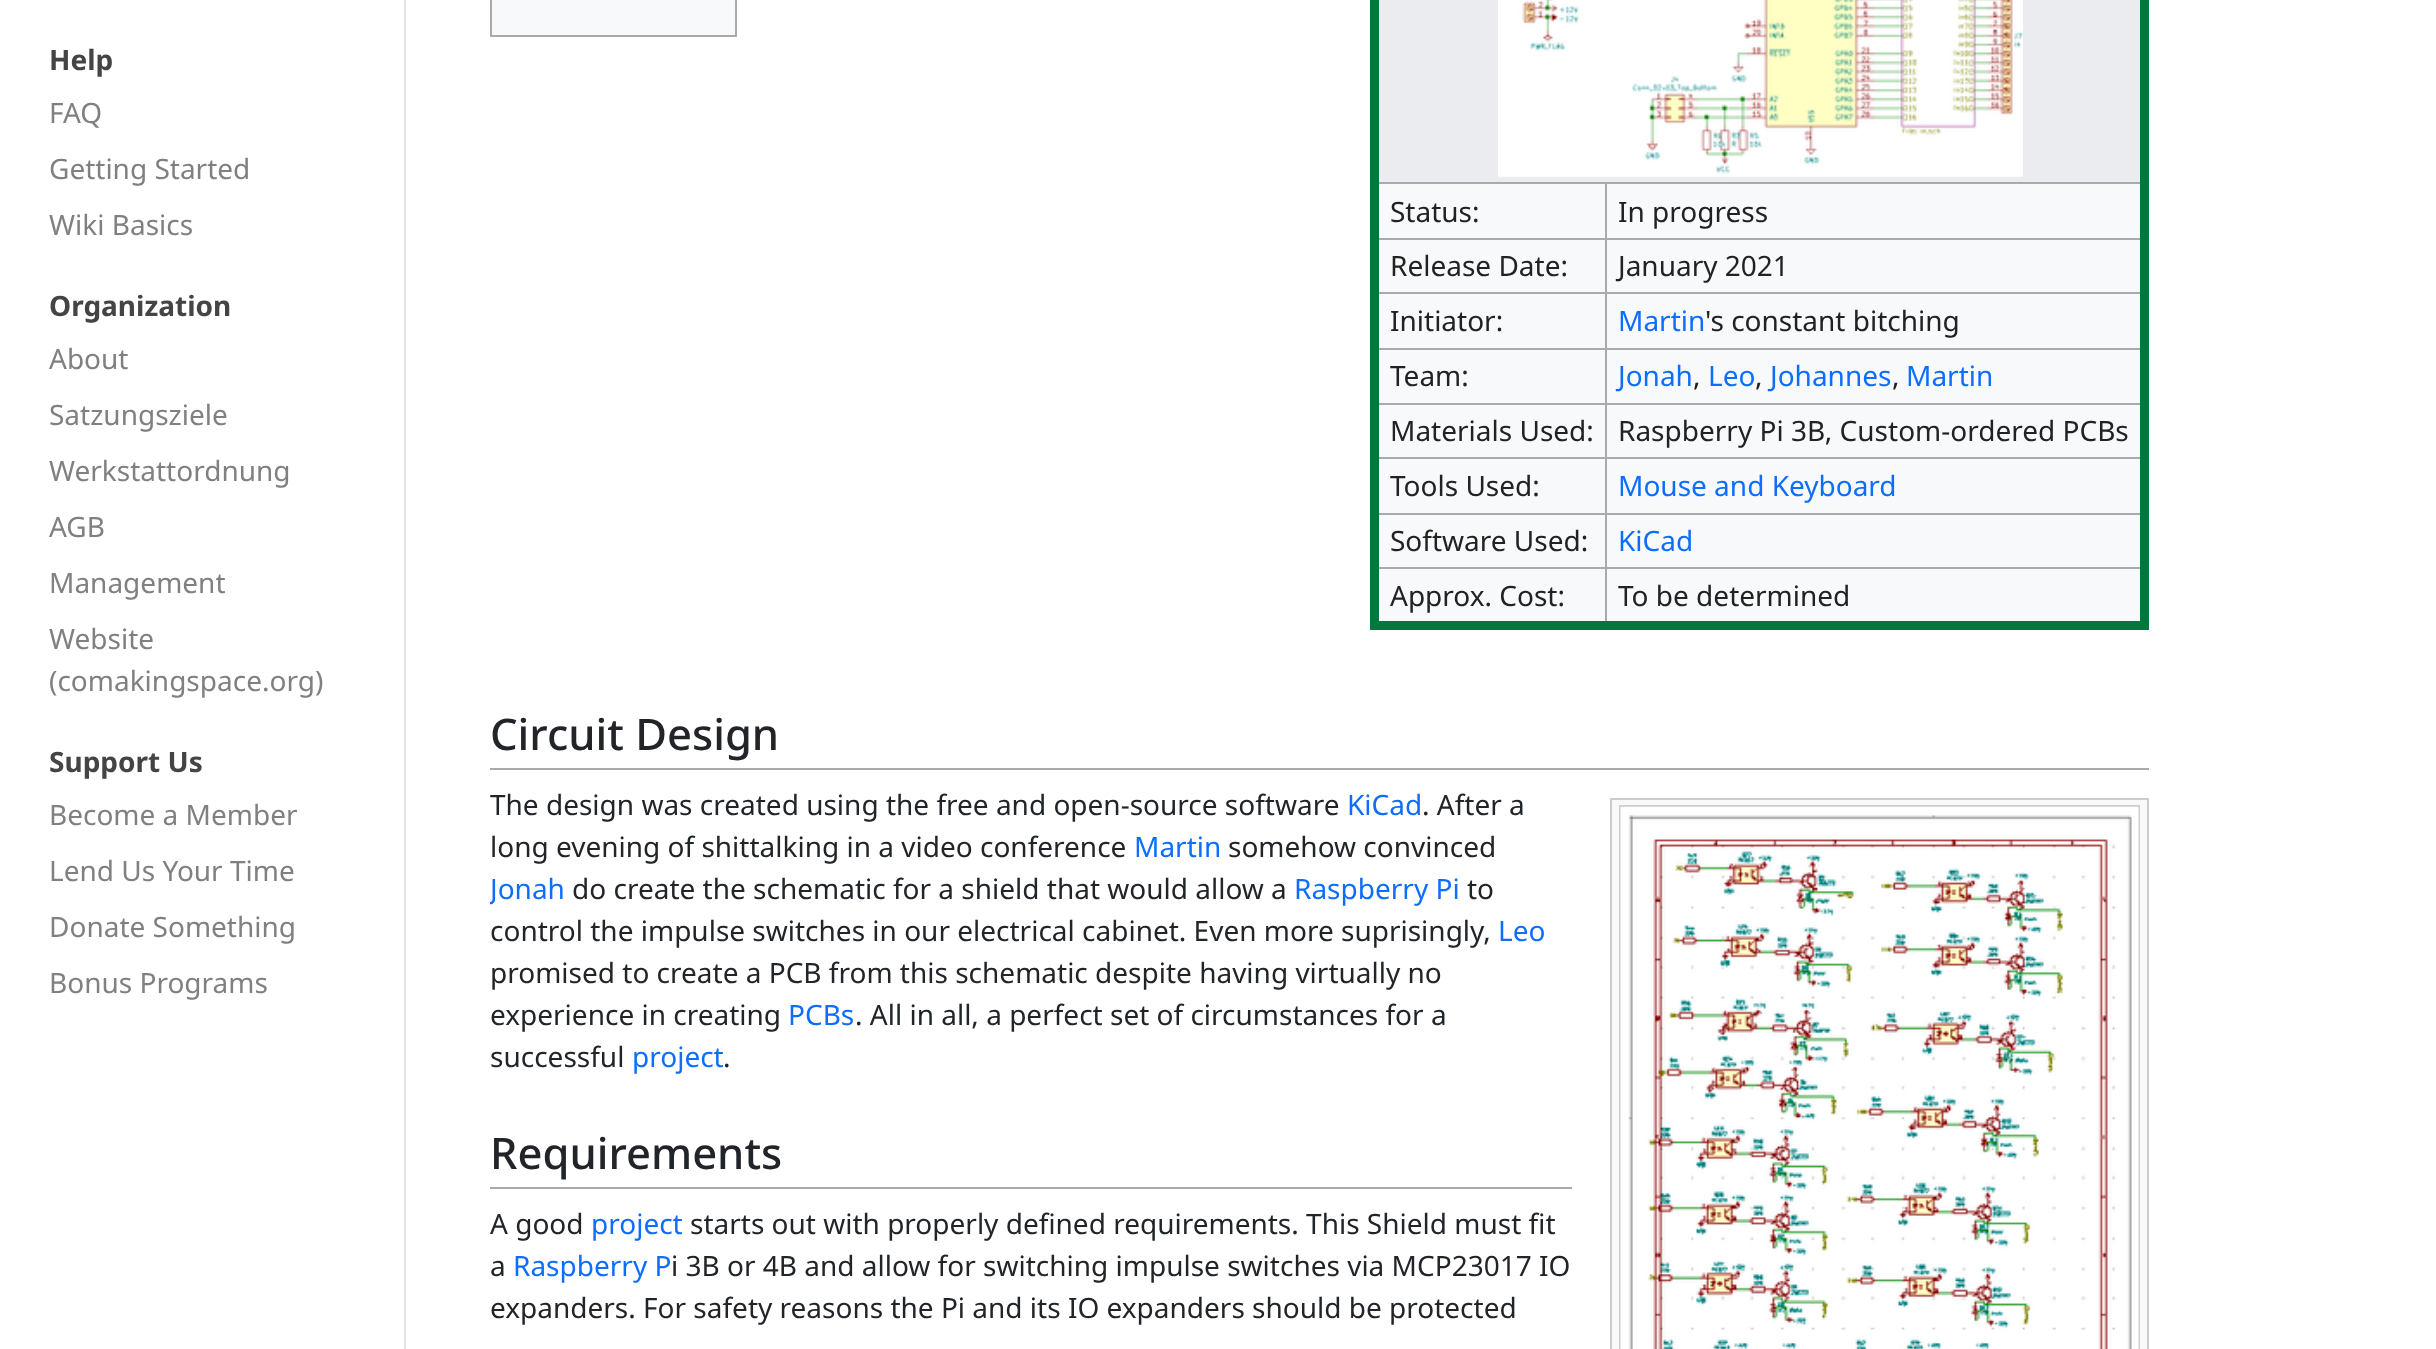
<svg xmlns="http://www.w3.org/2000/svg" width="2436" height="1349">
<style>
.a{font:bold 28px Noto Sans;fill:#444}
.b{font:28px Noto Sans;fill:#808080}
.c{font:28px Noto Sans;fill:#222}
.d{font:28px Noto Sans;fill:#0d6efd}
.e{font:500 43.5px Noto Sans;fill:#212529}
.f{font:28px Noto Sans;fill:#212529}
</style>
<defs>
<clipPath id="clip1"><path d="M490 0h1659v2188H490z"/></clipPath>
</defs>
<rect width="100%" height="100%" fill="#fff"/>
<path fill="#e5e5e5" d="M404 0h2v1349H404z"/>
<path fill="#f8f9fa" stroke="#aaa" stroke-width="2" d="M491 -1h245v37H491z"/>
<path fill="#f8f9fa" d="M1379 184h761v437H1379z"/>
<path fill="#aaa" d="M1605 182h541v2H1605z"/>
<path fill="#aaa" d="M1605 238h541v2H1605z"/>
<path fill="#aaa" d="M1605 292h541v2H1605z"/>
<path fill="#aaa" d="M1605 348h541v2H1605z"/>
<path fill="#aaa" d="M1605 403h541v2H1605z"/>
<path fill="#aaa" d="M1605 457h541v2H1605z"/>
<path fill="#aaa" d="M1605 513h541v2H1605z"/>
<path fill="#aaa" d="M1605 567h541v2H1605z"/>
<path fill="#00773d" d="M2140 0h9v621H2140z"/>
<path fill="#aaa" d="M1605 567h2v60H1605z"/>
<path fill="#00773d" d="M1379 621h770v9H1379z"/>
<path fill="#aaa" d="M1374 567h233v2H1374z"/>
<path fill="#aaa" d="M1605 513h2v56H1605z"/>
<path fill="#aaa" d="M1374 513h233v2H1374z"/>
<path fill="#aaa" d="M1605 457h2v58H1605z"/>
<path fill="#aaa" d="M1374 457h233v2H1374z"/>
<path fill="#aaa" d="M1605 403h2v56H1605z"/>
<path fill="#aaa" d="M1374 403h233v2H1374z"/>
<path fill="#aaa" d="M1605 348h2v56H1605z"/>
<path fill="#aaa" d="M1374 348h233v2H1374z"/>
<path fill="#aaa" d="M1605 292h2v58H1605z"/>
<path fill="#aaa" d="M1374 292h233v2H1374z"/>
<path fill="#aaa" d="M1605 238h2v56H1605z"/>
<path fill="#aaa" d="M1374 238h233v2H1374z"/>
<path fill="#aaa" d="M1605 182h2v58H1605z"/>
<path fill="#aaa" d="M1374 182h233v2H1374z"/>
<path fill="#00773d" d="M1370 0h9v630H1370z"/>
<path fill="#eaecf0" d="M1379 0h761v182H1379z"/>
<image href="1.png" x="1498" y="0" width="525" height="177"/>
<path fill="#aaa" d="M490 768h1659v2H490z"/>
<path fill="#f9f9f9" d="M1612 800h535v549H1612z"/>
<path fill="#ccc" d="M1610 798h539v2H1610z"/>
<path fill="#ccc" d="M2147 798h2v551H2147z"/>
<path fill="#ccc" d="M1610 798h2v551H1610z"/>
<path fill="none" stroke="#ccc" stroke-width="2" d="M1620 806h519v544H1620z"/>
<image href="2.png" x="1620" y="806" width="519" height="543"/>
<path fill="#aaa" d="M490 1187h1082v2H490z"/>
<text class="a" x="49" y="70">Help</text>
<text class="b" x="49" y="123">FAQ</text>
<text class="b" x="49" y="179">Getting Started</text>
<text class="b" x="49" y="235">Wiki Basics</text>
<text class="a" x="49" y="316">Organization</text>
<text class="b" x="49" y="369">About</text>
<text class="b" x="49" y="425">Satzungsziele</text>
<text class="b" x="49" y="481">Werkstattordnung</text>
<text class="b" x="49" y="537">AGB</text>
<text class="b" x="49" y="593">Management</text>
<text class="b" x="49" y="649">Website</text>
<text class="b" x="49" y="691">(comakingspace.org)</text>
<text class="a" x="49" y="772">Support Us</text>
<text class="b" x="49" y="825">Become a Member</text>
<text class="b" x="49" y="881">Lend Us Your Time</text>
<text class="b" x="49" y="937">Donate Something</text>
<text class="b" x="49" y="993">Bonus Programs</text>
<text class="c" x="1390" y="222">Status:</text>
<text class="c" x="1618" y="222">In progress</text>
<text class="c" x="1390" y="276">Release Date:</text>
<text class="c" x="1618" y="276">January 2021</text>
<text class="c" x="1390" y="331">Initiator:</text>
<text class="d" x="1618" y="331">Martin</text>
<text class="c" x="1705" y="331">'s constant bitching</text>
<text class="c" x="1390" y="386">Team:</text>
<text class="d" x="1618" y="386">Jonah</text>
<text class="c" x="1693" y="386">,</text>
<text class="d" x="1708" y="386">Leo</text>
<text class="c" x="1755" y="386">,</text>
<text class="d" x="1770" y="386">Johannes</text>
<text class="c" x="1892" y="386">,</text>
<text class="d" x="1906" y="386">Martin</text>
<text class="c" x="1390" y="441">Materials Used:</text>
<text class="c" x="1618" y="441">Raspberry Pi 3B, Custom-ordered PCBs</text>
<text class="c" x="1390" y="496">Tools Used:</text>
<text class="d" x="1618" y="496">Mouse and Keyboard</text>
<text class="c" x="1390" y="551">Software Used:</text>
<text class="d" x="1618" y="551">KiCad</text>
<text class="c" x="1390" y="606">Approx. Cost:</text>
<text class="c" x="1618" y="606">To be determined</text>
<text class="e" x="490" y="750">Circuit Design</text>
<text class="f" x="490" y="815">The design was created using the free and open-source software</text>
<text class="d" x="1347" y="815">KiCad</text>
<text class="f" x="1422" y="815">. After a</text>
<text class="f" x="490" y="857">long evening of shittalking in a video conference</text>
<text class="d" x="1134" y="857">Martin</text>
<text class="f" x="1228" y="857">somehow convinced</text>
<g clip-path="url(#clip1)">
<text class="d" x="490" y="899">Jonah</text>
</g>
<text class="f" x="572" y="899">do create the schematic for a shield that would allow a</text>
<text class="d" x="1294" y="899">Raspberry Pi</text>
<text class="f" x="1467" y="899">to</text>
<text class="f" x="490" y="941">control the impulse switches in our electrical cabinet. Even more suprisingly,</text>
<text class="d" x="1498" y="941">Leo</text>
<text class="f" x="490" y="983">promised to create a PCB from this schematic despite having virtually no</text>
<text class="f" x="490" y="1025">experience in creating</text>
<text class="d" x="788" y="1025">PCBs</text>
<text class="f" x="855" y="1025">. All in all, a perfect set of circumstances for a</text>
<text class="f" x="490" y="1067">successful</text>
<text class="d" x="632" y="1067">project</text>
<text class="f" x="723" y="1067">.</text>
<text class="e" x="490" y="1169">Requirements</text>
<text class="f" x="490" y="1234">A good</text>
<text class="d" x="591" y="1234">project</text>
<text class="f" x="690" y="1234">starts out with properly defined requirements. This Shield must fit</text>
<text class="f" x="490" y="1276">a</text>
<text class="d" x="513" y="1276">Raspberry P</text>
<text class="f" x="671" y="1276">i 3B or 4B and allow for switching impulse switches via MCP23017 IO</text>
<text class="f" x="490" y="1318">expanders. For safety reasons the Pi and its IO expanders should be protected</text>
</svg>
